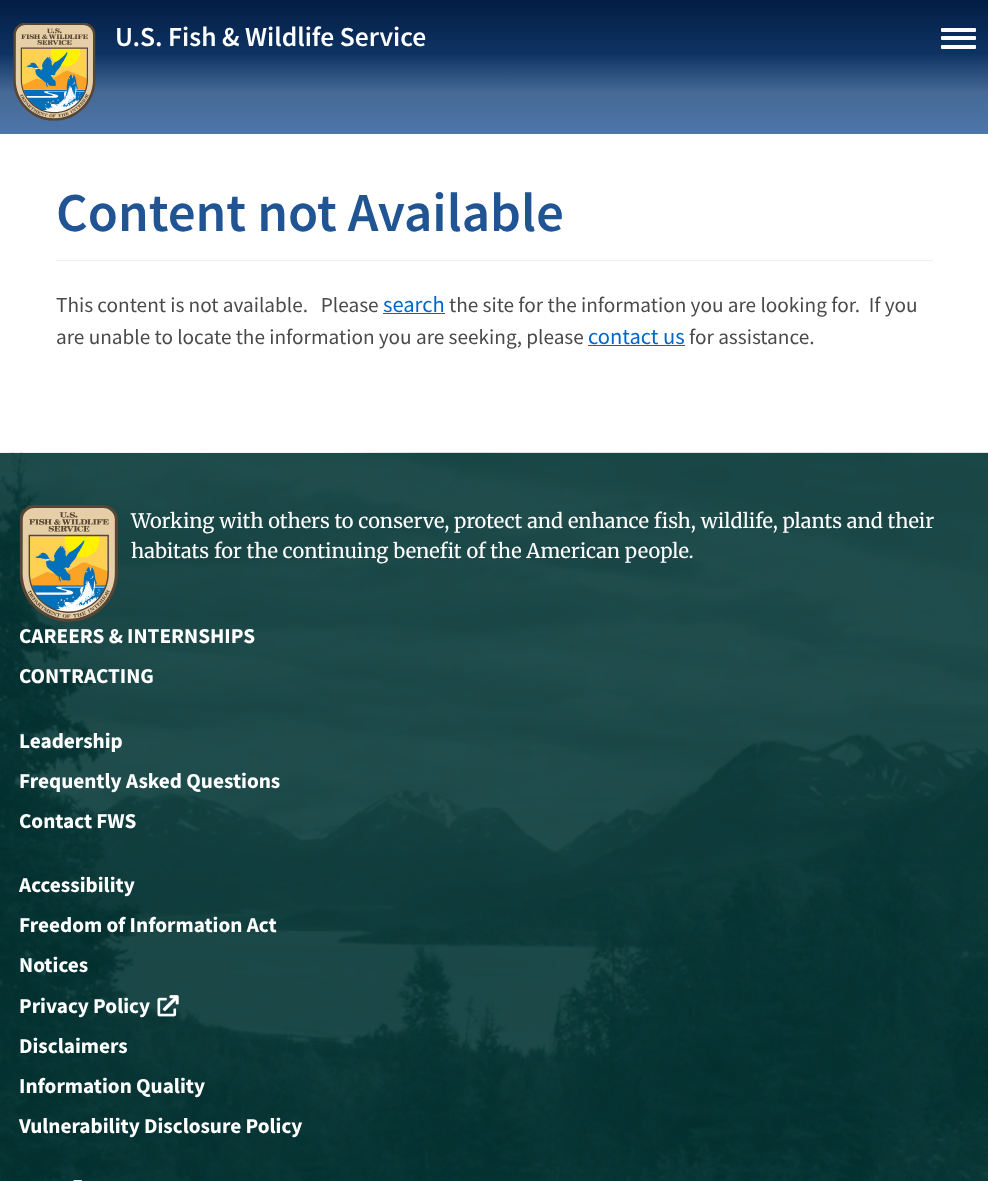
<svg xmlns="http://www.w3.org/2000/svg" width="988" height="1181">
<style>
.a{font:600 27.5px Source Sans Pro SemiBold;fill:#fff}
.b{font:600 55px Source Sans Pro SemiBold;fill:#205493}
.c{font:21.25px Source Sans Pro;fill:#4a4a4a}
.d{font:22.5px Source Sans Pro;fill:#06c}
.e{font:20px Merriweather;fill:#fff}
.f{font:bold 21.25px Source Sans Pro;fill:#fff}
</style>
<defs>
<linearGradient id="g1" gradientUnits="userSpaceOnUse" x1="494" y1="0" x2="494" y2="134"><stop offset="0" stop-color="#021d44"/><stop offset="0.4" stop-color="#0e3363"/><stop offset="0.69" stop-color="#466996"/><stop offset="1" stop-color="#4d76a9"/></linearGradient>
</defs>
<rect width="100%" height="100%" fill="#fff"/>
<path fill="url(#g1)" d="M0 0h988v134H0z"/>
<image href="1.png" x="13" y="23" width="83" height="98"/>
<rect fill="#fff" x="941" y="28" width="35" height="4" rx="1"/>
<rect fill="#fff" x="941" y="36" width="35" height="4" rx="1"/>
<rect fill="#fff" x="941" y="45" width="35" height="4" rx="1"/>
<path fill="#eee" d="M56 260h877v1H56z"/>
<path fill="#06c" d="M383 313h62v1H383z"/>
<path fill="#06c" d="M588 345h97v1H588z"/>
<image href="2.png" x="0" y="452" width="988" height="729"/>
<image href="3.png" x="19" y="505" width="99" height="117"/>
<image href="4.png" x="157" y="995" width="22" height="22"/>
<image href="5.png" x="73" y="1180" width="10" height="1"/>
<text class="a" x="115" y="46">U.S. Fish &amp; Wildlife Service</text>
<text class="b" x="56" y="231">Content not Available</text>
<text class="c" xml:space="preserve" x="56" y="312">This content is not available.   Please</text>
<text class="d" x="383" y="312">search</text>
<text class="c" xml:space="preserve" x="449" y="312">the site for the information you are looking for.  If you</text>
<text class="c" x="56" y="344">are unable to locate the information you are seeking, please</text>
<text class="d" x="588" y="344">contact us</text>
<text class="c" x="689" y="344">for assistance.</text>
<text class="e" x="131" y="528">Working with others to conserve, protect and enhance fish, wildlife, plants and their</text>
<text class="e" x="131" y="558">habitats for the continuing benefit of the American people.</text>
<text class="f" x="19" y="643">CAREERS &amp; INTERNSHIPS</text>
<text class="f" x="19" y="683">CONTRACTING</text>
<text class="f" x="19" y="748">Leadership</text>
<text class="f" x="19" y="788">Frequently Asked Questions</text>
<text class="f" x="19" y="828">Contact FWS</text>
<text class="f" x="19" y="892">Accessibility</text>
<text class="f" x="19" y="932">Freedom of Information Act</text>
<text class="f" x="19" y="972">Notices</text>
<text class="f" x="19" y="1013">Privacy Policy</text>
<text class="f" x="19" y="1053">Disclaimers</text>
<text class="f" x="19" y="1093">Information Quality</text>
<text class="f" x="19" y="1133">Vulnerability Disclosure Policy</text>
</svg>
